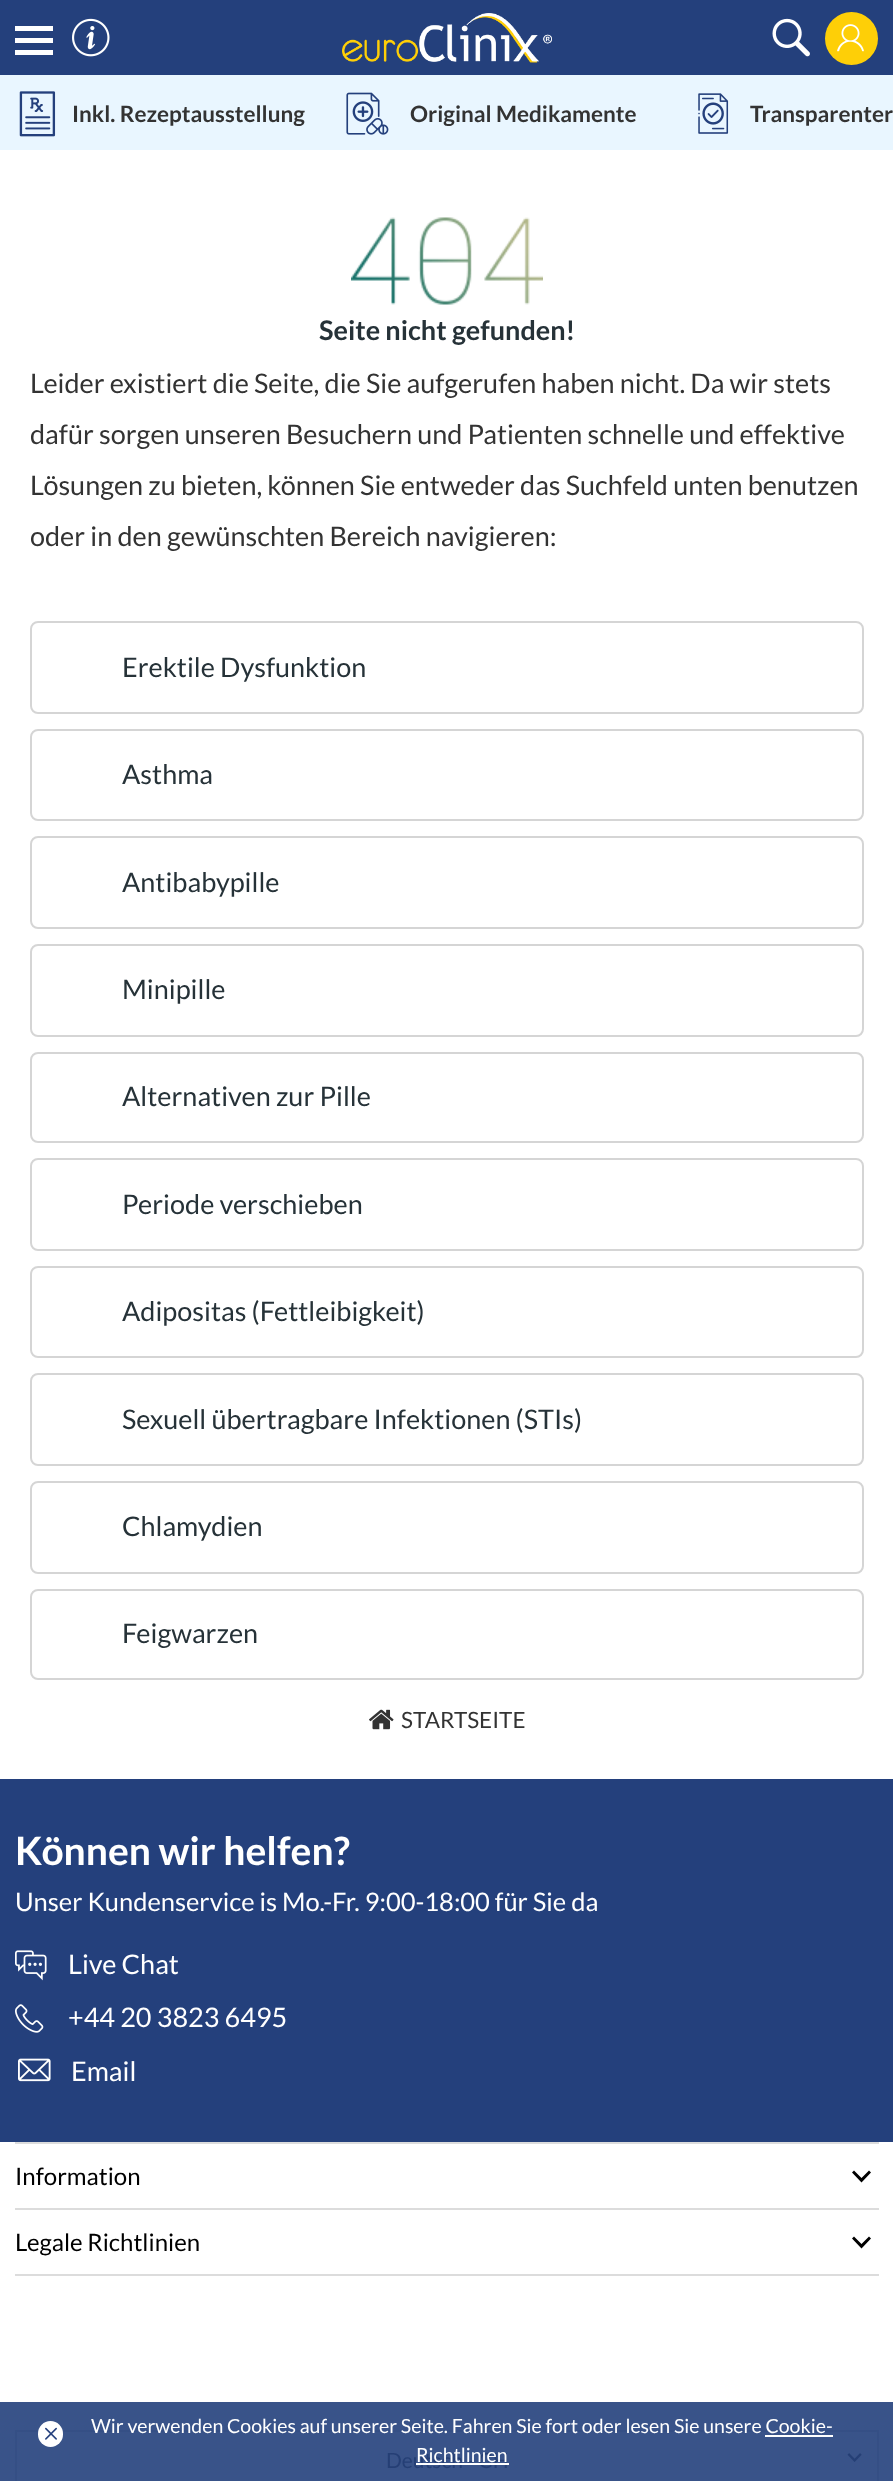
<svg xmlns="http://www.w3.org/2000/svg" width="893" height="2481">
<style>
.a{font:bold 22.5px Lato;fill:#333}
.b{font:bold 27px Lato;fill:#263238}
.c{font:27px Lato;fill:#333}
.d{font:27px Lato;fill:#263238}
.e{font:22.5px Lato;fill:#333}
.f{font:bold 39px Lato;fill:#fff}
.g{font:25.5px Lato;fill:#fff}
.h{font:27px Lato;fill:#fff}
.i{font:24px Lato;fill:#000}
.j{font:21px Lato;fill:#253f75}
.k{font:19.5px Lato;fill:#fff}
</style>
<rect width="100%" height="100%" fill="#fff"/>
<path fill="#395389" d="M0 2402h893v79H0z"/>
<path fill="#24407c" d="M0 0h893v75H0z"/>
<path fill="#fff" d="M15 26h38v5H15z"/>
<path fill="#fff" d="M15 38h38v5H15z"/>
<path fill="#fff" d="M15 50h38v5H15z"/>
<image href="1.png" x="72" y="18" width="38" height="39"/>
<image href="2.png" x="342" y="13" width="210" height="50"/>
<image href="3.png" x="772" y="18" width="38" height="39"/>
<circle fill="#fecf07" cx="851.5" cy="38.5" r="26.5"/>
<image href="4.png" x="837" y="24" width="27" height="28"/>
<path fill="#e9f6ff" d="M0 75h893v75H0z"/>
<image href="5.png" x="19" y="91" width="37" height="46"/>
<image href="6.png" x="346" y="92" width="43" height="43"/>
<image href="7.png" x="698" y="93" width="31" height="41"/>
<image href="8.png" x="351" y="217" width="192" height="88"/>
<rect fill="none" stroke="#d5d5d5" stroke-width="2" x="31" y="622" width="832" height="91" rx="7"/>
<rect fill="none" stroke="#d5d5d5" stroke-width="2" x="31" y="730" width="832" height="90" rx="7"/>
<rect fill="none" stroke="#d5d5d5" stroke-width="2" x="31" y="837" width="832" height="91" rx="7"/>
<rect fill="none" stroke="#d5d5d5" stroke-width="2" x="31" y="945" width="832" height="91" rx="7"/>
<rect fill="none" stroke="#d5d5d5" stroke-width="2" x="31" y="1053" width="832" height="89" rx="7"/>
<rect fill="none" stroke="#d5d5d5" stroke-width="2" x="31" y="1159" width="832" height="91" rx="7"/>
<rect fill="none" stroke="#d5d5d5" stroke-width="2" x="31" y="1267" width="832" height="90" rx="7"/>
<rect fill="none" stroke="#d5d5d5" stroke-width="2" x="31" y="1374" width="832" height="91" rx="7"/>
<rect fill="none" stroke="#d5d5d5" stroke-width="2" x="31" y="1482" width="832" height="91" rx="7"/>
<rect fill="none" stroke="#d5d5d5" stroke-width="2" x="31" y="1590" width="832" height="89" rx="7"/>
<image href="9.png" x="369" y="1709" width="25" height="21"/>
<path fill="#24407c" d="M0 1779h893v363H0z"/>
<image href="10.png" x="15" y="1950" width="32" height="31"/>
<image href="11.png" x="15" y="2004" width="29" height="29"/>
<image href="12.png" x="18" y="2058" width="33" height="24"/>
<path fill="#dcdcdc" d="M15 2142h864v2H15z"/>
<path fill="#000" d="M852 2172.5l9.5 10l9.5-10l-2-2l-7.5 7.5l-7.5-7.5z"/>
<path fill="#dcdcdc" d="M15 2208h864v2H15z"/>
<path fill="#000" d="M852 2238.5l9.5 10l9.5-10l-2-2l-7.5 7.5l-7.5-7.5z"/>
<path fill="#dcdcdc" d="M15 2274h864v2H15z"/>
<path fill="none" stroke="#354f85" stroke-width="2" d="M16 2431h862v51H16z"/>
<image href="13.png" x="847" y="2453" width="15" height="9"/>
<rect fill="#fff" x="38" y="2421" width="25" height="26" rx="12.5"/>
<image href="14.png" x="45" y="2427" width="12" height="13"/>
<path fill="#fff" d="M765 2435h68v2H765z"/>
<text class="a" x="72" y="122">Inkl. Rezeptausstellung</text>
<text class="a" x="410" y="122">Original Medikamente</text>
<text class="a" x="750" y="122">Transparenter</text>
<text class="b" x="319" y="340">Seite nicht gefunden!</text>
<text class="c" x="30" y="393">Leider existiert die Seite, die Sie aufgerufen haben nicht. Da wir stets</text>
<text class="c" x="30" y="444">dafür sorgen unseren Besuchern und Patienten schnelle und effektive</text>
<text class="c" x="30" y="495">Lösungen zu bieten, können Sie entweder das Suchfeld unten benutzen</text>
<text class="c" x="30" y="546">oder in den gewünschten Bereich navigieren:</text>
<text class="d" x="122" y="677">Erektile Dysfunktion</text>
<text class="d" x="122" y="784">Asthma</text>
<text class="d" x="122" y="892">Antibabypille</text>
<text class="d" x="122" y="999">Minipille</text>
<text class="d" x="122" y="1106">Alternativen zur Pille</text>
<text class="d" x="122" y="1214">Periode verschieben</text>
<text class="d" x="122" y="1321">Adipositas (Fettleibigkeit)</text>
<text class="d" x="122" y="1429">Sexuell übertragbare Infektionen (STIs)</text>
<text class="d" x="122" y="1536">Chlamydien</text>
<text class="d" x="122" y="1643">Feigwarzen</text>
<text class="e" x="401" y="1728">STARTSEITE</text>
<text class="f" x="15" y="1865">Können wir helfen?</text>
<text class="g" x="15" y="1911">Unser Kundenservice is Mo.-Fr. 9:00-18:00 für Sie da</text>
<text class="h" x="68" y="1974">Live Chat</text>
<text class="h" x="68" y="2027">+44 20 3823 6495</text>
<text class="h" x="71" y="2081">Email</text>
<text class="i" x="15" y="2185">Information</text>
<text class="i" x="15" y="2251">Legale Richtlinien</text>
<text class="j" x="386" y="2468">Deutsch - CH</text>
<text class="k" x="91" y="2433">Wir verwenden Cookies auf unserer Seite. Fahren Sie fort oder lesen Sie unsere Cookie-</text>
<text class="k" x="416" y="2462">Richtlinien</text>
<path fill="#fff" d="M416 2463h93v2H416z"/>
</svg>
